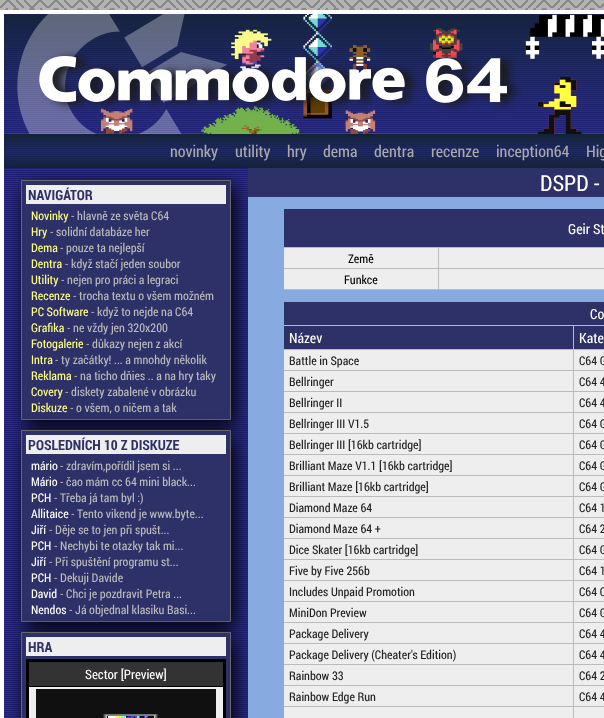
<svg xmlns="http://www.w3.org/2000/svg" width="604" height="718">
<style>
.a{font:16px Roboto Condensed;fill:#aaa}
.b{font:bold 14px Roboto Condensed;fill:#2e3168}
.c{font:12px Roboto Condensed;fill:#ffff80}
.d{font:12px Roboto Condensed;fill:#bbb}
.e{font:12px Roboto Condensed;fill:#fff}
.f{font:13px Roboto Condensed;fill:#fff}
.g{font:22px Roboto Condensed;fill:#fff}
.h{font:14px Roboto Condensed;fill:#fff}
.i{font:12px Roboto Condensed;fill:#000}
.j{font:12px Roboto Condensed;fill:#222}
</style>
<rect width="100%" height="100%" fill="#fff"/>
<image href="1.png" x="0" y="0" width="604" height="134"/>
<path fill="none" stroke="#fff" stroke-width="4" d="M2 12h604v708H2z"/>
<image href="2.png" x="4" y="14" width="600" height="120"/>
<image href="3.png" x="4" y="134" width="600" height="34"/>
<image href="4.png" x="4" y="168" width="244" height="550"/>
<path fill="#000" filter="blur(10px)" d="M25 186h210v240H25z"/>
<path fill="#2e3168" stroke="#666" d="M21.5 180.5h209v239H21.5z"/>
<path fill="#eee" d="M26 185h200v19H26z"/>
<path fill="#000" filter="blur(10px)" d="M25 436h210v192H25z"/>
<path fill="#2e3168" stroke="#666" d="M21.5 430.5h209v191H21.5z"/>
<path fill="#eee" d="M26 435h200v19H26z"/>
<path fill="#000" filter="blur(10px)" d="M25 638h210v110H25z"/>
<path fill="#2e3168" stroke="#666" d="M21.5 632.5h209v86H21.5z"/>
<path fill="#eee" d="M26 637h200v19H26z"/>
<path fill="#eee" d="M29 687h194v31H29z"/>
<path fill="#000" d="M26 659h200v3H26z"/>
<path fill="#000" d="M27 686h198v1H27z"/>
<path fill="#000" d="M223 659h3v59H223z"/>
<path fill="#000" d="M26 659h3v59H26z"/>
<path fill="#333" d="M29 662h194v24H29z"/>
<image href="5.png" x="36" y="689" width="180" height="29"/>
<path fill="#87aae0" d="M248 197h356v521H248z"/>
<path fill="#2e3168" d="M248 168h356v29H248z"/>
<path fill="#2e3168" d="M284 209h320v38H284z"/>
<path fill="#bbb" d="M284 247h320v1H284z"/>
<path fill="#eee" d="M284 248h154v20H284z"/>
<path fill="#bbb" d="M438 248h1v42H438z"/>
<path fill="#bbb" d="M284 268h320v1H284z"/>
<path fill="#eee" d="M439 248h165v20H439z"/>
<path fill="#eee" d="M284 269h154v20H284z"/>
<path fill="#bbb" d="M284 289h320v1H284z"/>
<path fill="#eee" d="M439 269h165v20H439z"/>
<path fill="#2e3168" d="M284 302h320v23H284z"/>
<path fill="#bbb" d="M284 325h320v1H284z"/>
<path fill="#2e3168" d="M284 326h289v23H284z"/>
<path fill="#bbb" d="M573 326h1v392H573z"/>
<path fill="#bbb" d="M284 349h320v1H284z"/>
<path fill="#2e3168" d="M574 326h30v23H574z"/>
<path fill="#eee" d="M284 350h289v20H284z"/>
<path fill="#bbb" d="M284 370h320v1H284z"/>
<path fill="#eee" d="M574 350h30v20H574z"/>
<path fill="#eee" d="M284 371h289v20H284z"/>
<path fill="#bbb" d="M284 391h320v1H284z"/>
<path fill="#eee" d="M574 371h30v20H574z"/>
<path fill="#eee" d="M284 392h289v20H284z"/>
<path fill="#bbb" d="M284 412h320v1H284z"/>
<path fill="#eee" d="M574 392h30v20H574z"/>
<path fill="#eee" d="M284 413h289v20H284z"/>
<path fill="#bbb" d="M284 433h320v1H284z"/>
<path fill="#eee" d="M574 413h30v20H574z"/>
<path fill="#eee" d="M284 434h289v20H284z"/>
<path fill="#bbb" d="M284 454h320v1H284z"/>
<path fill="#eee" d="M574 434h30v20H574z"/>
<path fill="#eee" d="M284 455h289v20H284z"/>
<path fill="#bbb" d="M284 475h320v1H284z"/>
<path fill="#eee" d="M574 455h30v20H574z"/>
<path fill="#eee" d="M284 476h289v20H284z"/>
<path fill="#bbb" d="M284 496h320v1H284z"/>
<path fill="#eee" d="M574 476h30v20H574z"/>
<path fill="#eee" d="M284 497h289v20H284z"/>
<path fill="#bbb" d="M284 517h320v1H284z"/>
<path fill="#eee" d="M574 497h30v20H574z"/>
<path fill="#eee" d="M284 518h289v20H284z"/>
<path fill="#bbb" d="M284 538h320v1H284z"/>
<path fill="#eee" d="M574 518h30v20H574z"/>
<path fill="#eee" d="M284 539h289v20H284z"/>
<path fill="#bbb" d="M284 559h320v1H284z"/>
<path fill="#eee" d="M574 539h30v20H574z"/>
<path fill="#eee" d="M284 560h289v20H284z"/>
<path fill="#bbb" d="M284 580h320v1H284z"/>
<path fill="#eee" d="M574 560h30v20H574z"/>
<path fill="#eee" d="M284 581h289v20H284z"/>
<path fill="#bbb" d="M284 601h320v1H284z"/>
<path fill="#eee" d="M574 581h30v20H574z"/>
<path fill="#eee" d="M284 602h289v20H284z"/>
<path fill="#bbb" d="M284 622h320v1H284z"/>
<path fill="#eee" d="M574 602h30v20H574z"/>
<path fill="#eee" d="M284 623h289v20H284z"/>
<path fill="#bbb" d="M284 643h320v1H284z"/>
<path fill="#eee" d="M574 623h30v20H574z"/>
<path fill="#eee" d="M284 644h289v20H284z"/>
<path fill="#bbb" d="M284 664h320v1H284z"/>
<path fill="#eee" d="M574 644h30v20H574z"/>
<path fill="#eee" d="M284 665h289v20H284z"/>
<path fill="#bbb" d="M284 685h320v1H284z"/>
<path fill="#eee" d="M574 665h30v20H574z"/>
<path fill="#eee" d="M284 686h289v20H284z"/>
<path fill="#bbb" d="M284 706h320v1H284z"/>
<path fill="#eee" d="M574 686h30v20H574z"/>
<path fill="#eee" d="M284 707h289v11H284z"/>
<path fill="#eee" d="M574 707h30v11H574z"/>
<text class="a" x="170" y="157">novinky</text>
<text class="a" x="235" y="157">utility</text>
<text class="a" x="287" y="157">hry</text>
<text class="a" x="323" y="157">dema</text>
<text class="a" x="374" y="157">dentra</text>
<text class="a" x="431" y="157">recenze</text>
<text class="a" x="496" y="157">inception64</text>
<text class="a" x="586" y="157">Hig</text>
<text class="b" x="28" y="200">NAVIGÁTOR</text>
<text class="c" x="31" y="220">Novinky</text>
<text class="d" x="71" y="220">- hlavně ze světa C64</text>
<text class="c" x="31" y="236">Hry</text>
<text class="d" x="50" y="236">- solidní databáze her</text>
<text class="c" x="31" y="252">Dema</text>
<text class="d" x="60" y="252">- pouze ta nejlepší</text>
<text class="c" x="31" y="268">Dentra</text>
<text class="d" x="65" y="268">- když stačí jeden soubor</text>
<text class="c" x="31" y="284">Utility</text>
<text class="d" x="61" y="284">- nejen pro práci a legraci</text>
<text class="c" x="31" y="300">Recenze</text>
<text class="d" x="73" y="300">- trocha textu o všem možném</text>
<text class="c" x="31" y="316">PC Software</text>
<text class="d" x="91" y="316">- když to nejde na C64</text>
<text class="c" x="31" y="332">Grafika</text>
<text class="d" x="67" y="332">- ne vždy jen 320x200</text>
<text class="c" x="31" y="348">Fotogalerie</text>
<text class="d" x="86" y="348">- důkazy nejen z akcí</text>
<text class="c" x="31" y="364">Intra</text>
<text class="d" x="55" y="364">- ty začátky! ... a mnohdy několik</text>
<text class="c" x="31" y="380">Reklama</text>
<text class="d" x="74" y="380">- na ticho dňies .. a na hry taky</text>
<text class="c" x="31" y="396">Covery</text>
<text class="d" x="65" y="396">- diskety zabalené v obrázku</text>
<text class="c" x="31" y="412">Diskuze</text>
<text class="d" x="70" y="412">- o všem, o ničem a tak</text>
<text class="b" x="28" y="450">POSLEDNÍCH 10 Z DISKUZE</text>
<text class="e" x="31" y="470">mário</text>
<text class="d" x="60" y="470">- zdravím,pořídil jsem si ...</text>
<text class="e" x="31" y="486">Mário</text>
<text class="d" x="60" y="486">- čao mám cc 64 mini black...</text>
<text class="e" x="31" y="502">PCH</text>
<text class="d" x="54" y="502">- Třeba já tam byl :)</text>
<text class="e" x="31" y="518">Allitaice</text>
<text class="d" x="71" y="518">- Tento vikend je www.byte...</text>
<text class="e" x="31" y="534">Jiří</text>
<text class="d" x="49" y="534">- Děje se to jen při spušt...</text>
<text class="e" x="31" y="550">PCH</text>
<text class="d" x="54" y="550">- Nechybi te otazky tak mi...</text>
<text class="e" x="31" y="566">Jiří</text>
<text class="d" x="49" y="566">- Při spuštění programu st...</text>
<text class="e" x="31" y="582">PCH</text>
<text class="d" x="54" y="582">- Dekuji Davide</text>
<text class="e" x="31" y="598">David</text>
<text class="d" x="60" y="598">- Chci je pozdravit Petra ...</text>
<text class="e" x="31" y="614">Nendos</text>
<text class="d" x="69" y="614">- Já objednal klasiku Basi...</text>
<text class="b" x="28" y="652">HRA</text>
<text class="f" x="85" y="679">Sector [Preview]</text>
<text class="g" x="540" y="191">DSPD -</text>
<text class="h" x="568" y="234">Geir St</text>
<text class="i" x="348" y="263">Země</text>
<text class="i" x="344" y="284">Funkce</text>
<text class="h" x="590" y="319">Co</text>
<text class="h" x="289" y="343">Název</text>
<text class="h" x="579" y="343">Kate</text>
<text class="j" x="289" y="365">Battle in Space</text>
<text class="j" x="579" y="365">C64 G</text>
<text class="j" x="289" y="386">Bellringer</text>
<text class="j" x="579" y="386">C64 4</text>
<text class="j" x="289" y="407">Bellringer II</text>
<text class="j" x="579" y="407">C64 4</text>
<text class="j" x="289" y="428">Bellringer III V1.5</text>
<text class="j" x="579" y="428">C64 G</text>
<text class="j" x="289" y="449">Bellringer III [16kb cartridge]</text>
<text class="j" x="579" y="449">C64 G</text>
<text class="j" x="289" y="470">Brilliant Maze V1.1 [16kb cartridge]</text>
<text class="j" x="579" y="470">C64 G</text>
<text class="j" x="289" y="491">Brilliant Maze [16kb cartridge]</text>
<text class="j" x="579" y="491">C64 G</text>
<text class="j" x="289" y="512">Diamond Maze 64</text>
<text class="j" x="579" y="512">C64 1</text>
<text class="j" x="289" y="533">Diamond Maze 64 +</text>
<text class="j" x="579" y="533">C64 2</text>
<text class="j" x="289" y="554">Dice Skater [16kb cartridge]</text>
<text class="j" x="579" y="554">C64 G</text>
<text class="j" x="289" y="575">Five by Five 256b</text>
<text class="j" x="579" y="575">C64 1</text>
<text class="j" x="289" y="596">Includes Unpaid Promotion</text>
<text class="j" x="579" y="596">C64 O</text>
<text class="j" x="289" y="617">MiniDon Preview</text>
<text class="j" x="579" y="617">C64 G</text>
<text class="j" x="289" y="638">Package Delivery</text>
<text class="j" x="579" y="638">C64 4</text>
<text class="j" x="289" y="659">Package Delivery (Cheater's Edition)</text>
<text class="j" x="579" y="659">C64 4</text>
<text class="j" x="289" y="680">Rainbow 33</text>
<text class="j" x="579" y="680">C64 2</text>
<text class="j" x="289" y="701">Rainbow Edge Run</text>
<text class="j" x="579" y="701">C64 4</text>
</svg>
